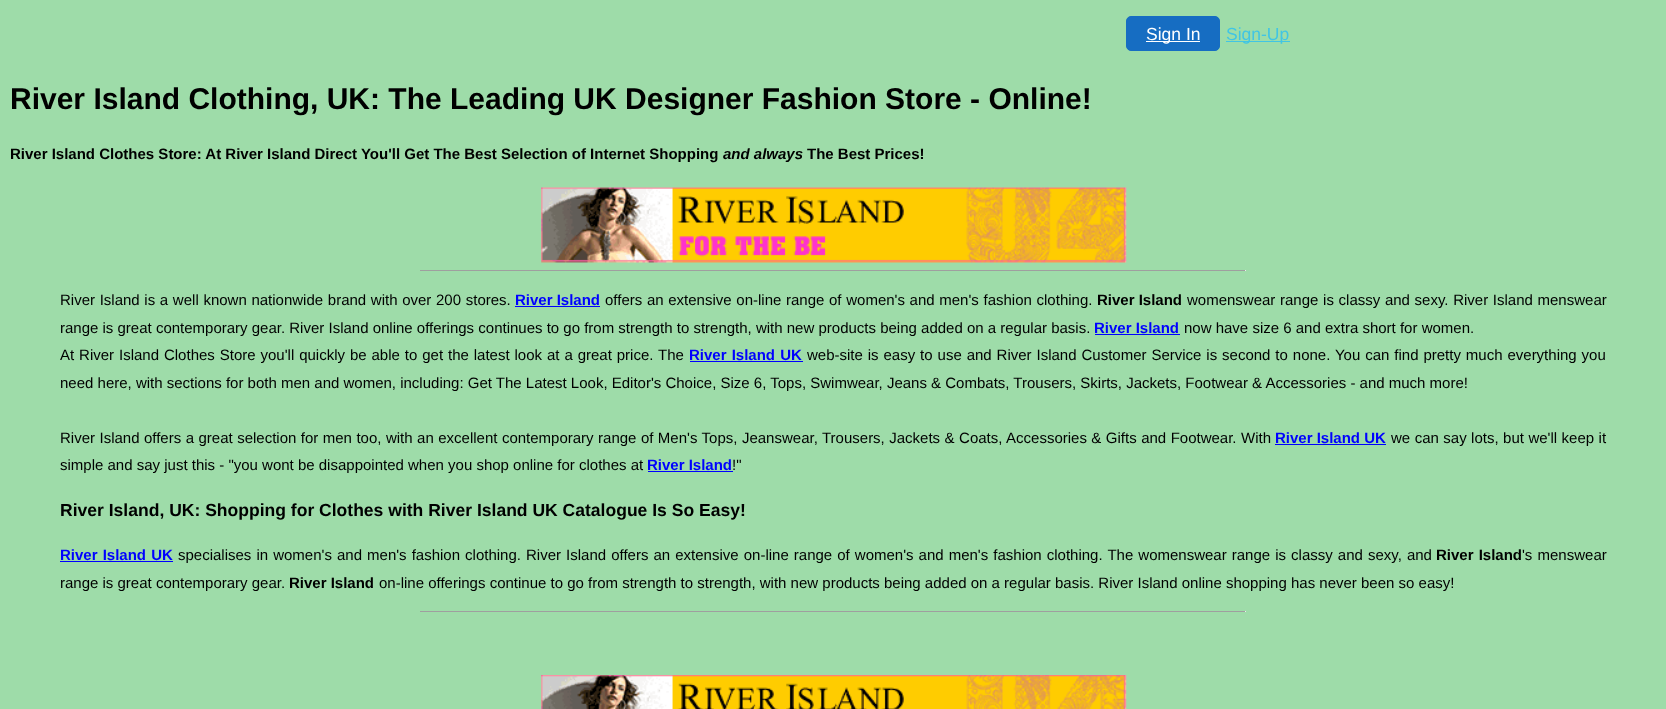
<svg xmlns="http://www.w3.org/2000/svg" width="1666" height="709">
<style>
.a{font:17.5px Liberation Sans;fill:#fff}
.b{font:17.5px Liberation Sans;fill:#41c5e4}
.c{font:bold 30px Liberation Sans;fill:#000}
.d{font:bold 15px Liberation Sans;fill:#000}
.e{font:italic bold 15px Liberation Sans;fill:#000}
.f{font:15px Liberation Sans;fill:#000}
.g{font:bold 15px Liberation Sans;fill:#00f}
.h{font:bold 17.55px Liberation Sans;fill:#000}
</style>
<rect width="100%" height="100%" fill="#9edca9"/>
<rect fill="#166dc2" stroke="#166dc2" x="1126.5" y="16.5" width="93" height="34" rx="4.5"/>
<path fill="#fff" d="M1146 41h54v1H1146z"/>
<path fill="#41c5e4" d="M1226 41h64v1H1226z"/>
<image href="1.png" x="541" y="187" width="586" height="76"/>
<path fill="#9f9f9f" d="M420 270h826v1H420z"/>
<path fill="#eee" d="M1245 270h1v1H1245z"/>
<path fill="#00f" d="M515 306h85v1H515z"/>
<path fill="#00f" d="M1095 334h85v1H1095z"/>
<path fill="#00f" d="M690 361h113v1H690z"/>
<path fill="#00f" d="M1275 444h111v1H1275z"/>
<path fill="#00f" d="M648 471h85v1H648z"/>
<path fill="#00f" d="M60 561h113v1H60z"/>
<path fill="#9f9f9f" d="M420 611h826v1H420z"/>
<path fill="#eee" d="M1245 611h1v1H1245z"/>
<image href="2.png" x="541" y="675" width="586" height="34"/>
<text class="a" x="1146" y="40">Sign In</text>
<text class="b" x="1226" y="40">Sign-Up</text>
<text class="c" x="10" y="109">River Island Clothing, UK: The Leading UK Designer Fashion Store - Online!</text>
<text class="d" x="10" y="159">River Island Clothes Store: At River Island Direct You'll Get The Best Selection of Internet Shopping</text>
<text class="e" x="723" y="159">and always</text>
<text class="d" x="807" y="159">The Best Prices!</text>
<text class="f" x="60" y="305" word-spacing="0.5">River Island is a well known nationwide brand with over 200 stores.</text>
<text class="g" x="515" y="305">River Island</text>
<text class="f" x="605" y="305" word-spacing="0.5">offers an extensive on-line range of women's and men's fashion clothing.</text>
<text class="d" x="1097" y="305">River Island</text>
<text class="f" x="1187" y="305" word-spacing="0.5">womenswear range is classy and sexy. River Island menswear</text>
<text class="f" x="60" y="333">range is great contemporary gear. River Island online offerings continues to go from strength to strength, with new products being added on a regular basis.</text>
<text class="g" x="1094" y="333">River Island</text>
<text class="f" x="1184" y="333">now have size 6 and extra short for women.</text>
<text class="f" x="60" y="360" word-spacing="0.75">At River Island Clothes Store you'll quickly be able to get the latest look at a great price. The</text>
<text class="g" x="689" y="360" word-spacing="1">River Island UK</text>
<text class="f" x="807" y="360" word-spacing="0.75">web-site is easy to use and River Island Customer Service is second to none. You can find pretty much everything you</text>
<text class="f" x="60" y="388">need here, with sections for both men and women, including: Get The Latest Look, Editor's Choice, Size 6, Tops, Swimwear, Jeans &amp; Combats, Trousers, Skirts, Jackets, Footwear &amp; Accessories - and much more!</text>
<text class="f" x="60" y="443" word-spacing="0.3">River Island offers a great selection for men too, with an excellent contemporary range of Men's Tops, Jeanswear, Trousers, Jackets &amp; Coats, Accessories &amp; Gifts and Footwear. With</text>
<text class="g" x="1275" y="443">River Island UK</text>
<text class="f" x="1391" y="443" word-spacing="0.3">we can say lots, but we'll keep it</text>
<text class="f" x="60" y="470">simple and say just this - "you wont be disappointed when you shop online for clothes at</text>
<text class="g" x="647" y="470">River Island</text>
<text class="f" x="732" y="470">!"</text>
<text class="h" x="60" y="516">River Island, UK: Shopping for Clothes with River Island UK Catalogue Is So Easy!</text>
<text class="g" x="60" y="560" word-spacing="1">River Island UK</text>
<text class="f" x="178" y="560" word-spacing="0.9">specialises in women's and men's fashion clothing. River Island offers an extensive on-line range of women's and men's fashion clothing. The womenswear range is classy and sexy, and</text>
<text class="d" x="1436" y="560" word-spacing="1">River Island</text>
<text class="f" x="1522" y="560" word-spacing="1">'s menswear</text>
<text class="f" x="60" y="588">range is great contemporary gear.</text>
<text class="d" x="289" y="588">River Island</text>
<text class="f" x="379" y="588">on-line offerings continue to go from strength to strength, with new products being added on a regular basis. River Island online shopping has never been so easy!</text>
</svg>
